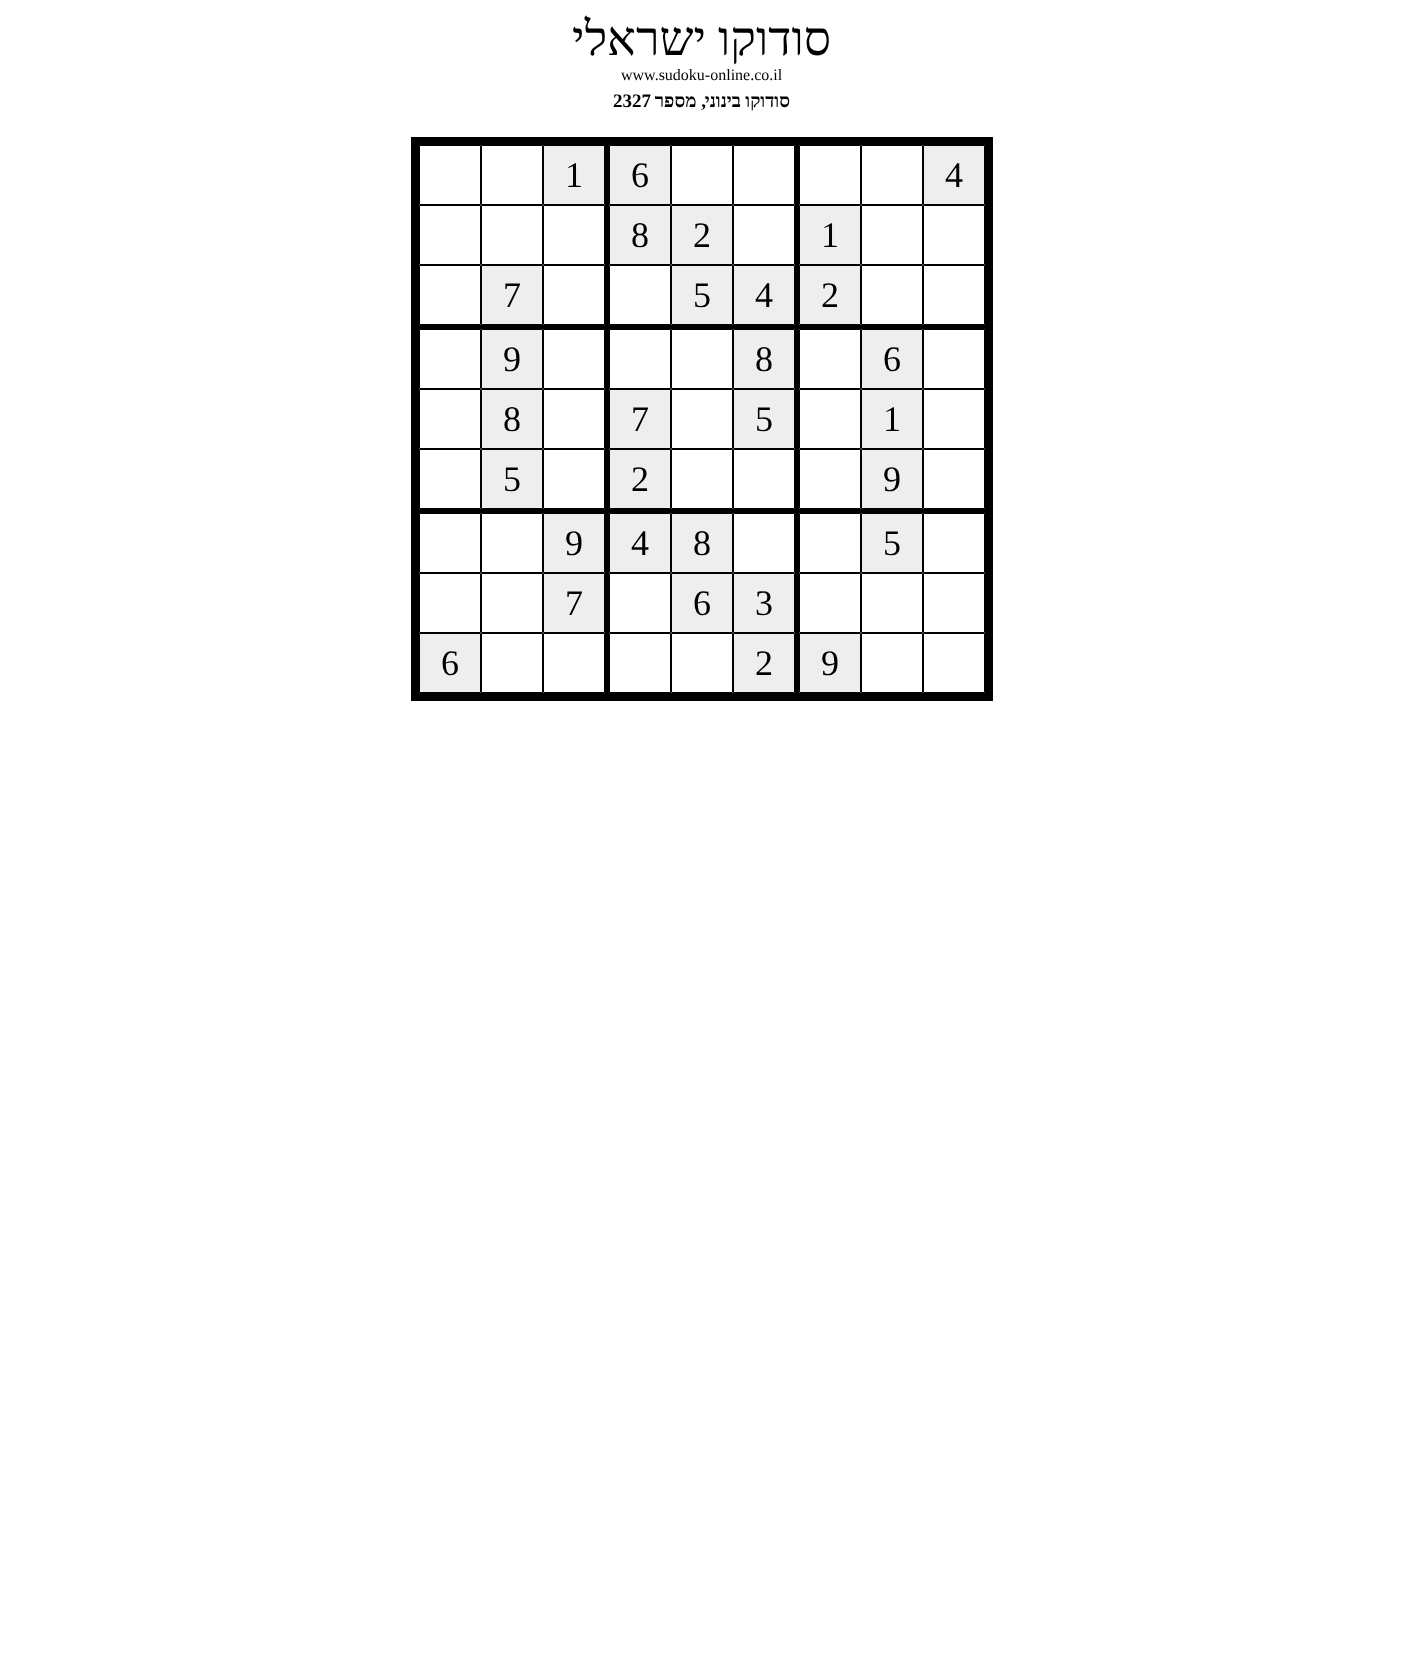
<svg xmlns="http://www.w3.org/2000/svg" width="1403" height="1661">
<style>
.a{font:48px Liberation Serif;direction:rtl;fill:#000}
.b{font:16px Liberation Serif;fill:#000}
.c{font:bold 19px Liberation Serif;fill:#000}
.d{font:bold 19px Liberation Serif;direction:rtl;fill:#000}
.e{font:36px Liberation Serif;fill:#000}
</style>
<rect width="100%" height="100%" fill="#fff"/>
<path fill="none" stroke="#000" stroke-width="6" d="M414 140h576v558H414z"/>
<path fill="none" stroke="#000" stroke-width="2" d="M418 144h188v182H418z"/>
<path fill="none" stroke="#000" d="M419.5 145.5h61v59H419.5z"/>
<path fill="none" stroke="#000" d="M481.5 145.5h61v59H481.5z"/>
<path fill="#eee" stroke="#000" d="M543.5 145.5h61v59H543.5z"/>
<path fill="none" stroke="#000" d="M419.5 205.5h61v59H419.5z"/>
<path fill="none" stroke="#000" d="M481.5 205.5h61v59H481.5z"/>
<path fill="none" stroke="#000" d="M543.5 205.5h61v59H543.5z"/>
<path fill="none" stroke="#000" d="M419.5 265.5h61v59H419.5z"/>
<path fill="#eee" stroke="#000" d="M481.5 265.5h61v59H481.5z"/>
<path fill="none" stroke="#000" d="M543.5 265.5h61v59H543.5z"/>
<path fill="none" stroke="#000" stroke-width="2" d="M608 144h188v182H608z"/>
<path fill="#eee" stroke="#000" d="M609.5 145.5h61v59H609.5z"/>
<path fill="none" stroke="#000" d="M671.5 145.5h61v59H671.5z"/>
<path fill="none" stroke="#000" d="M733.5 145.5h61v59H733.5z"/>
<path fill="#eee" stroke="#000" d="M609.5 205.5h61v59H609.5z"/>
<path fill="#eee" stroke="#000" d="M671.5 205.5h61v59H671.5z"/>
<path fill="none" stroke="#000" d="M733.5 205.5h61v59H733.5z"/>
<path fill="none" stroke="#000" d="M609.5 265.5h61v59H609.5z"/>
<path fill="#eee" stroke="#000" d="M671.5 265.5h61v59H671.5z"/>
<path fill="#eee" stroke="#000" d="M733.5 265.5h61v59H733.5z"/>
<path fill="none" stroke="#000" stroke-width="2" d="M798 144h188v182H798z"/>
<path fill="none" stroke="#000" d="M799.5 145.5h61v59H799.5z"/>
<path fill="none" stroke="#000" d="M861.5 145.5h61v59H861.5z"/>
<path fill="#eee" stroke="#000" d="M923.5 145.5h61v59H923.5z"/>
<path fill="#eee" stroke="#000" d="M799.5 205.5h61v59H799.5z"/>
<path fill="none" stroke="#000" d="M861.5 205.5h61v59H861.5z"/>
<path fill="none" stroke="#000" d="M923.5 205.5h61v59H923.5z"/>
<path fill="#eee" stroke="#000" d="M799.5 265.5h61v59H799.5z"/>
<path fill="none" stroke="#000" d="M861.5 265.5h61v59H861.5z"/>
<path fill="none" stroke="#000" d="M923.5 265.5h61v59H923.5z"/>
<path fill="none" stroke="#000" stroke-width="2" d="M418 328h188v182H418z"/>
<path fill="none" stroke="#000" d="M419.5 329.5h61v59H419.5z"/>
<path fill="#eee" stroke="#000" d="M481.5 329.5h61v59H481.5z"/>
<path fill="none" stroke="#000" d="M543.5 329.5h61v59H543.5z"/>
<path fill="none" stroke="#000" d="M419.5 389.5h61v59H419.5z"/>
<path fill="#eee" stroke="#000" d="M481.5 389.5h61v59H481.5z"/>
<path fill="none" stroke="#000" d="M543.5 389.5h61v59H543.5z"/>
<path fill="none" stroke="#000" d="M419.5 449.5h61v59H419.5z"/>
<path fill="#eee" stroke="#000" d="M481.5 449.5h61v59H481.5z"/>
<path fill="none" stroke="#000" d="M543.5 449.5h61v59H543.5z"/>
<path fill="none" stroke="#000" stroke-width="2" d="M608 328h188v182H608z"/>
<path fill="none" stroke="#000" d="M609.5 329.5h61v59H609.5z"/>
<path fill="none" stroke="#000" d="M671.5 329.5h61v59H671.5z"/>
<path fill="#eee" stroke="#000" d="M733.5 329.5h61v59H733.5z"/>
<path fill="#eee" stroke="#000" d="M609.5 389.5h61v59H609.5z"/>
<path fill="none" stroke="#000" d="M671.5 389.5h61v59H671.5z"/>
<path fill="#eee" stroke="#000" d="M733.5 389.5h61v59H733.5z"/>
<path fill="#eee" stroke="#000" d="M609.5 449.5h61v59H609.5z"/>
<path fill="none" stroke="#000" d="M671.5 449.5h61v59H671.5z"/>
<path fill="none" stroke="#000" d="M733.5 449.5h61v59H733.5z"/>
<path fill="none" stroke="#000" stroke-width="2" d="M798 328h188v182H798z"/>
<path fill="none" stroke="#000" d="M799.5 329.5h61v59H799.5z"/>
<path fill="#eee" stroke="#000" d="M861.5 329.5h61v59H861.5z"/>
<path fill="none" stroke="#000" d="M923.5 329.5h61v59H923.5z"/>
<path fill="none" stroke="#000" d="M799.5 389.5h61v59H799.5z"/>
<path fill="#eee" stroke="#000" d="M861.5 389.5h61v59H861.5z"/>
<path fill="none" stroke="#000" d="M923.5 389.5h61v59H923.5z"/>
<path fill="none" stroke="#000" d="M799.5 449.5h61v59H799.5z"/>
<path fill="#eee" stroke="#000" d="M861.5 449.5h61v59H861.5z"/>
<path fill="none" stroke="#000" d="M923.5 449.5h61v59H923.5z"/>
<path fill="none" stroke="#000" stroke-width="2" d="M418 512h188v182H418z"/>
<path fill="none" stroke="#000" d="M419.5 513.5h61v59H419.5z"/>
<path fill="none" stroke="#000" d="M481.5 513.5h61v59H481.5z"/>
<path fill="#eee" stroke="#000" d="M543.5 513.5h61v59H543.5z"/>
<path fill="none" stroke="#000" d="M419.5 573.5h61v59H419.5z"/>
<path fill="none" stroke="#000" d="M481.5 573.5h61v59H481.5z"/>
<path fill="#eee" stroke="#000" d="M543.5 573.5h61v59H543.5z"/>
<path fill="#eee" stroke="#000" d="M419.5 633.5h61v59H419.5z"/>
<path fill="none" stroke="#000" d="M481.5 633.5h61v59H481.5z"/>
<path fill="none" stroke="#000" d="M543.5 633.5h61v59H543.5z"/>
<path fill="none" stroke="#000" stroke-width="2" d="M608 512h188v182H608z"/>
<path fill="#eee" stroke="#000" d="M609.5 513.5h61v59H609.5z"/>
<path fill="#eee" stroke="#000" d="M671.5 513.5h61v59H671.5z"/>
<path fill="none" stroke="#000" d="M733.5 513.5h61v59H733.5z"/>
<path fill="none" stroke="#000" d="M609.5 573.5h61v59H609.5z"/>
<path fill="#eee" stroke="#000" d="M671.5 573.5h61v59H671.5z"/>
<path fill="#eee" stroke="#000" d="M733.5 573.5h61v59H733.5z"/>
<path fill="none" stroke="#000" d="M609.5 633.5h61v59H609.5z"/>
<path fill="none" stroke="#000" d="M671.5 633.5h61v59H671.5z"/>
<path fill="#eee" stroke="#000" d="M733.5 633.5h61v59H733.5z"/>
<path fill="none" stroke="#000" stroke-width="2" d="M798 512h188v182H798z"/>
<path fill="none" stroke="#000" d="M799.5 513.5h61v59H799.5z"/>
<path fill="#eee" stroke="#000" d="M861.5 513.5h61v59H861.5z"/>
<path fill="none" stroke="#000" d="M923.5 513.5h61v59H923.5z"/>
<path fill="none" stroke="#000" d="M799.5 573.5h61v59H799.5z"/>
<path fill="none" stroke="#000" d="M861.5 573.5h61v59H861.5z"/>
<path fill="none" stroke="#000" d="M923.5 573.5h61v59H923.5z"/>
<path fill="#eee" stroke="#000" d="M799.5 633.5h61v59H799.5z"/>
<path fill="none" stroke="#000" d="M861.5 633.5h61v59H861.5z"/>
<path fill="none" stroke="#000" d="M923.5 633.5h61v59H923.5z"/>
<text class="a" x="831" y="55">סודוקו ישראלי</text>
<text class="b" x="621" y="80">www.sudoku-online.co.il</text>
<text class="c" x="613" y="107">2327</text>
<text class="d" x="706" y="107">, מספר</text>
<text class="d" x="741" y="107">בינוני</text>
<text class="d" x="790" y="107">סודוקו</text>
<text class="e" x="565" y="187">1</text>
<text class="e" x="503" y="307">7</text>
<text class="e" x="631" y="187">6</text>
<text class="e" x="631" y="247">8</text>
<text class="e" x="693" y="247">2</text>
<text class="e" x="693" y="307">5</text>
<text class="e" x="755" y="307">4</text>
<text class="e" x="945" y="187">4</text>
<text class="e" x="821" y="247">1</text>
<text class="e" x="821" y="307">2</text>
<text class="e" x="503" y="371">9</text>
<text class="e" x="503" y="431">8</text>
<text class="e" x="503" y="491">5</text>
<text class="e" x="755" y="371">8</text>
<text class="e" x="631" y="431">7</text>
<text class="e" x="755" y="431">5</text>
<text class="e" x="631" y="491">2</text>
<text class="e" x="883" y="371">6</text>
<text class="e" x="883" y="431">1</text>
<text class="e" x="883" y="491">9</text>
<text class="e" x="565" y="555">9</text>
<text class="e" x="565" y="615">7</text>
<text class="e" x="441" y="675">6</text>
<text class="e" x="631" y="555">4</text>
<text class="e" x="693" y="555">8</text>
<text class="e" x="693" y="615">6</text>
<text class="e" x="755" y="615">3</text>
<text class="e" x="755" y="675">2</text>
<text class="e" x="883" y="555">5</text>
<text class="e" x="821" y="675">9</text>
</svg>
